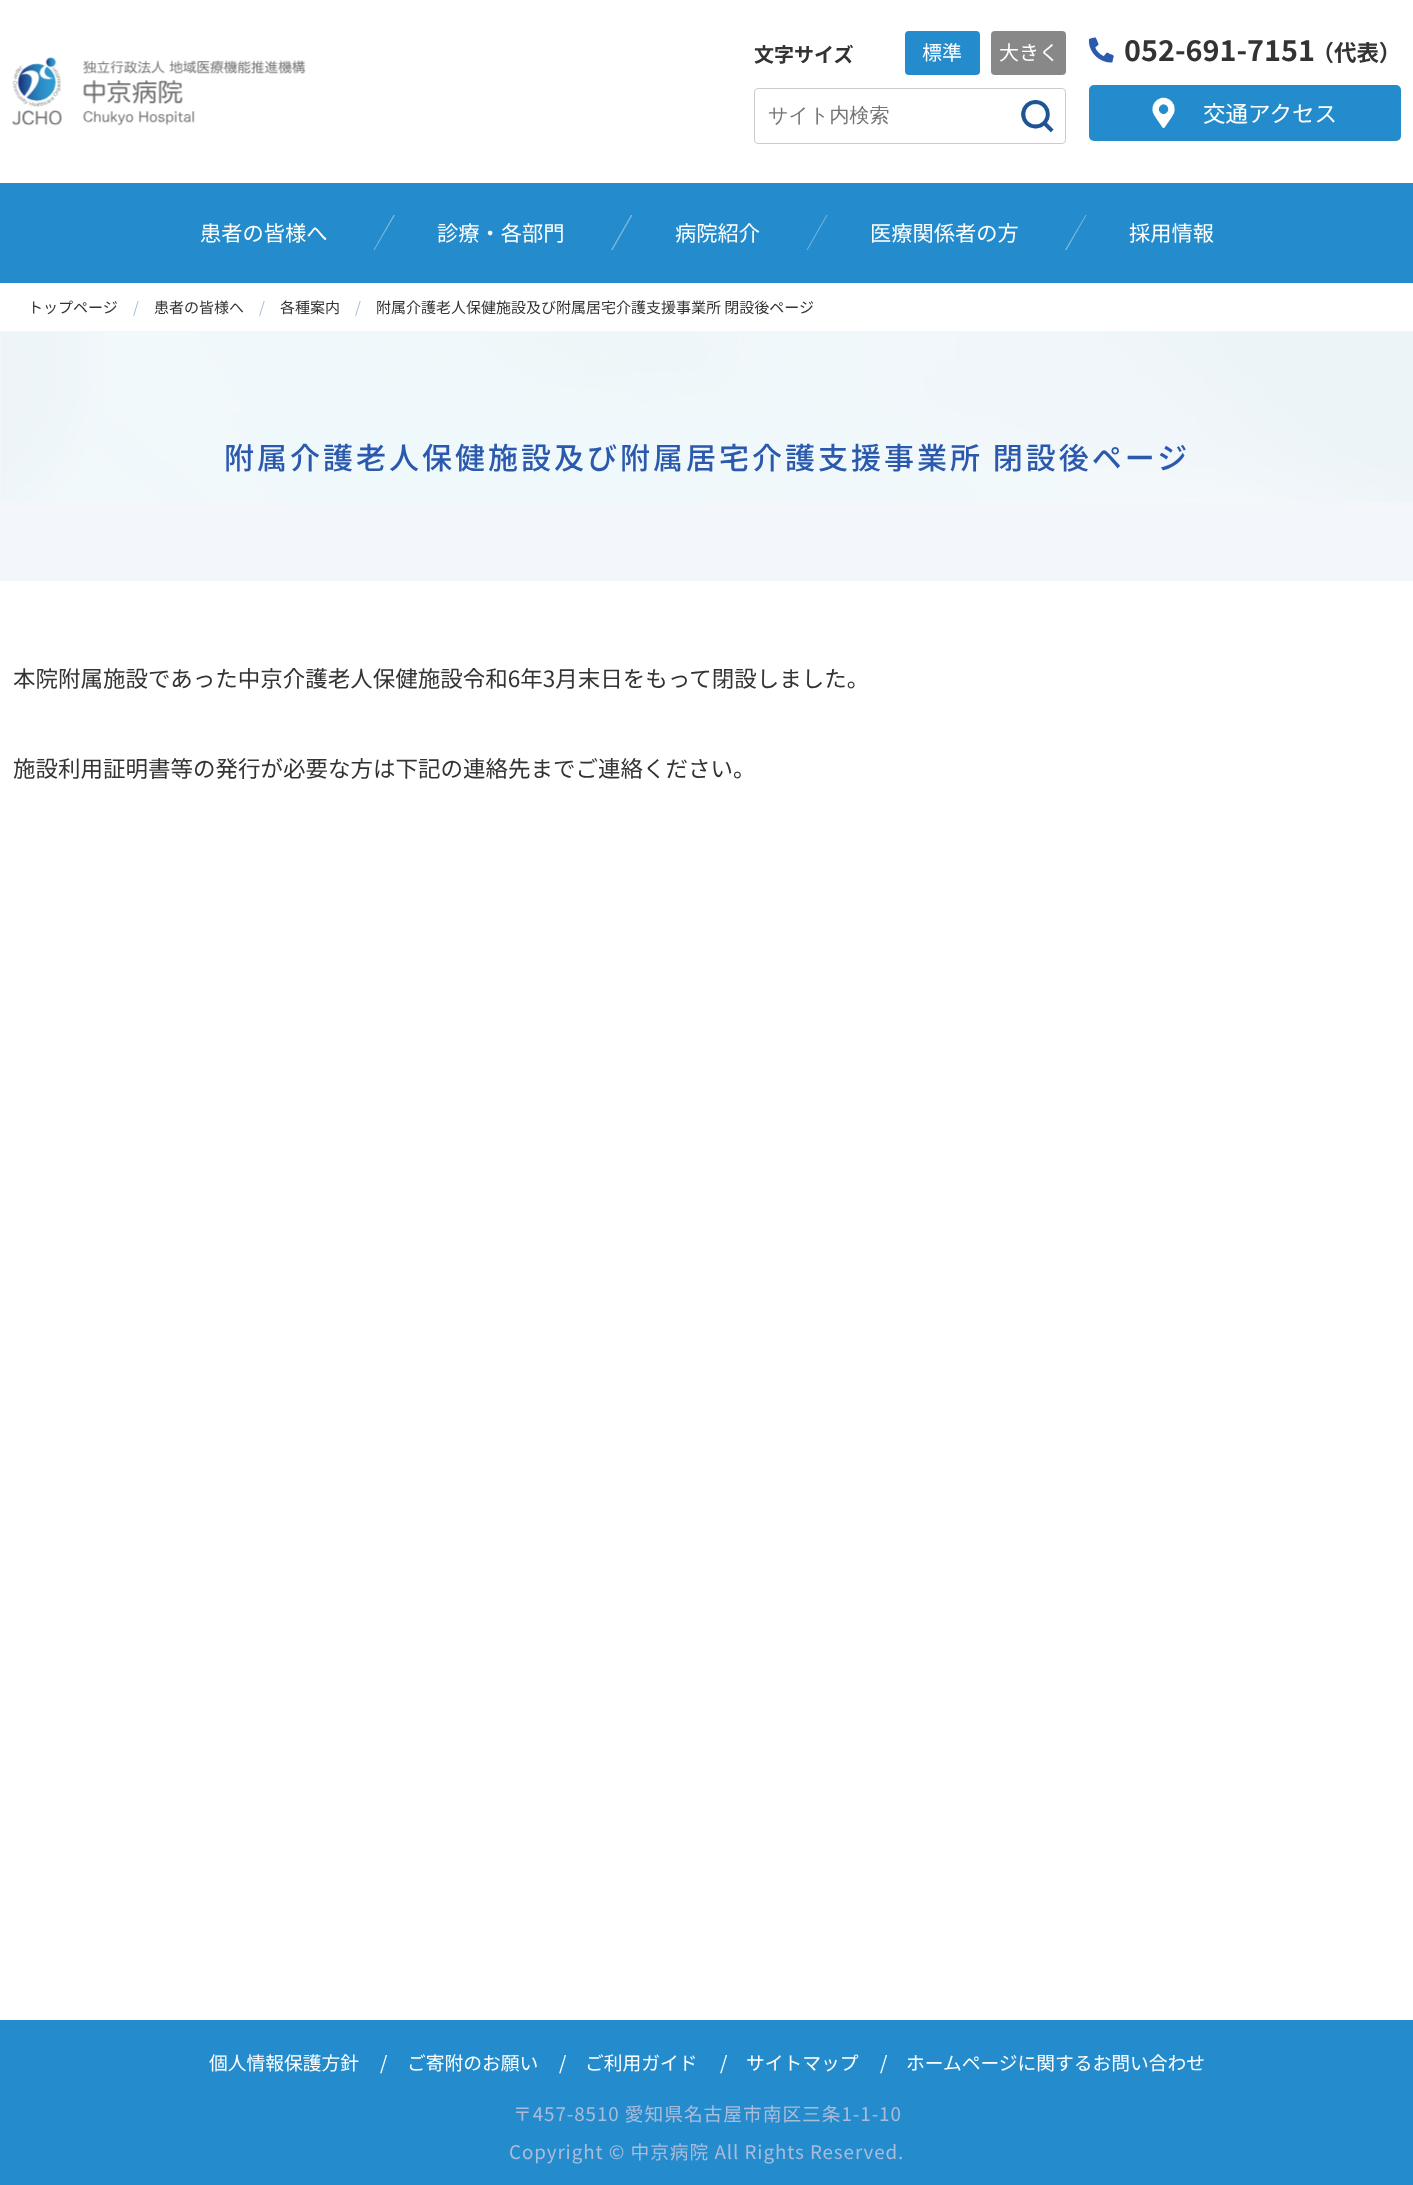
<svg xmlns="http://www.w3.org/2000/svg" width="1413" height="2185">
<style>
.a{font:bold 20px Noto Sans JP;fill:#333}
.b{font:20px Noto Sans JP;fill:#fff}
.c{font:500 20px WenQuanYi Zen Hei;fill:#757575}
.d{font:bold 28.75px Noto Sans JP;fill:#333}
.e{font:bold 22.5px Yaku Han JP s;fill:#333}
.f{font:bold 22.5px Noto Sans JP;fill:#333}
.g{font:22.5px Noto Sans JP;fill:#fff}
.h{font:21.25px Noto Sans JP;fill:#fff}
.i{font:15px Noto Sans JP;fill:#333}
.j{font:15px Noto Sans JP;fill:#abbcdb}
.k{font:500 30px Noto Sans JP;letter-spacing:3px;fill:#2b59ad}
.l{font:22.5px Noto Sans JP;fill:#333}
.m{font:18.75px Noto Sans JP;fill:#fff}
.n{font:18.75px Noto Sans JP;letter-spacing:0.95px;fill:#abbcdb}
</style>
<rect width="100%" height="100%" fill="#fff"/>
<image href="1.png" x="12" y="57" width="294" height="69"/>
<rect fill="#248ccc" x="905" y="31" width="75" height="44" rx="4"/>
<rect fill="#888" x="991" y="31" width="75" height="44" rx="4"/>
<rect fill="none" stroke="#ccc" x="754.5" y="88.5" width="311" height="55" rx="3.5"/>
<image href="2.png" x="1021" y="100" width="33" height="33"/>
<image href="3.png" x="1088" y="37" width="26" height="26"/>
<rect fill="#248ccc" x="1089" y="85" width="312" height="56" rx="5"/>
<image href="4.png" x="1152" y="97" width="23" height="31"/>
<path fill="#248ccc" d="M0 183h1413v100H0z"/>
<path fill="#7cbae0" d="M393.5 215h1.5l-20.5 35h-1z"/>
<path fill="#7cbae0" d="M631 215h1.5l-20 35h-1.5z"/>
<path fill="#7cbae0" d="M826.5 215h1l-20 35h-1z"/>
<path fill="#7cbae0" d="M1085.5 215h1l-20 35h-1.5z"/>
<path fill="#f3f6fa" d="M0 331h1413v250H0z"/>
<image href="5.png" x="1" y="332" width="1412" height="170"/>
<path fill="#248ccc" d="M0 2020h1413v165H0z"/>
<text class="a" x="754" y="62">文字サイズ</text>
<text class="b" x="922" y="60">標準</text>
<text class="b" x="999" y="60">大きく</text>
<text class="c" x="768" y="122">サイト内検索</text>
<text class="d" x="1124" y="61">052-691-7151</text>
<text class="e" x="1322" y="61">（</text>
<text class="f" x="1334" y="61">代表</text>
<text class="e" x="1379" y="61">）</text>
<text class="g" x="1203" y="122">交通アクセス</text>
<text class="h" x="200" y="241">患者の皆様へ</text>
<text class="h" x="437" y="241">診療・各部門</text>
<text class="h" x="675" y="241">病院紹介</text>
<text class="h" x="870" y="241">医療関係者の方</text>
<text class="h" x="1129" y="241">採用情報</text>
<text class="i" x="28" y="313">トップページ</text>
<text class="j" x="133" y="313">/</text>
<text class="i" x="154" y="313">患者の皆様へ</text>
<text class="j" x="259" y="313">/</text>
<text class="i" x="280" y="313">各種案内</text>
<text class="j" x="355" y="313">/</text>
<text class="i" x="376" y="313">附属介護老人保健施設及び附属居宅介護支援事業所 閉設後ページ</text>
<text class="k" x="224" y="469">附属介護老人保健施設及び附属居宅介護支援事業所 閉設後ページ</text>
<text class="l" x="13" y="687">本院附属施設であった中京介護老人保健施設令和6年3月末日をもって閉設しました。</text>
<text class="l" x="13" y="777">施設利用証明書等の発行が必要な方は下記の連絡先までご連絡ください。</text>
<text class="m" x="209" y="2070">個人情報保護方針</text>
<text class="m" x="380" y="2070">/</text>
<text class="m" x="407" y="2070">ご寄附のお願い</text>
<text class="m" x="559" y="2070">/</text>
<text class="m" x="585" y="2070">ご利用ガイド</text>
<text class="m" x="720" y="2070">/</text>
<text class="m" x="746" y="2070">サイトマップ</text>
<text class="m" x="880" y="2070">/</text>
<text class="m" x="906" y="2070">ホームページに関するお問い合わせ</text>
<text class="n" x="513" y="2121">〒457-8510 愛知県名古屋市南区三条1-1-10</text>
<text class="n" x="509" y="2159">Copyright © 中京病院 All Rights Reserved.</text>
</svg>
